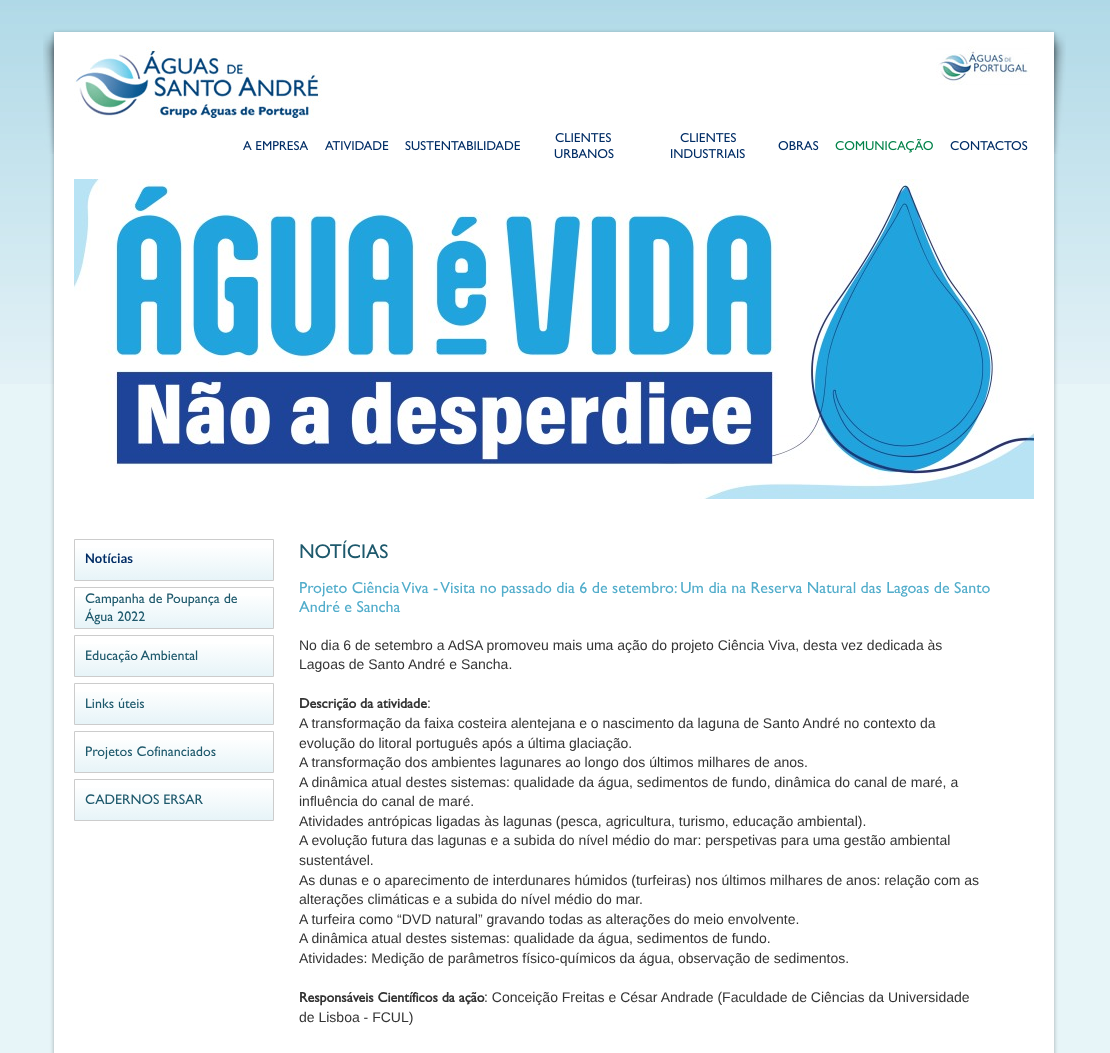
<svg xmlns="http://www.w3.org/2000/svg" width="1110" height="1053">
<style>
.a{font:20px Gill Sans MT;fill:#1e596c}
.b{font:bold 13px Lato;fill:#002c65}
.c{font:14px Gill Sans MT;fill:#1e596c}
.d{font:16px Gill Sans MT;fill:#52adcb}
.e{font:14px Liberation Sans;fill:#333}
.f{font:bold 14px Gill Sans MT;fill:#333}
</style>
<defs>
<linearGradient id="g1" gradientUnits="userSpaceOnUse" x1="174" y1="540" x2="174" y2="580"><stop offset="0.12" stop-color="#fff"/><stop offset="0.99" stop-color="#e7f4f8"/></linearGradient>
<linearGradient id="g2" gradientUnits="userSpaceOnUse" x1="174" y1="588" x2="174" y2="628"><stop offset="0.12" stop-color="#fff"/><stop offset="0.99" stop-color="#e7f4f8"/></linearGradient>
<linearGradient id="g3" gradientUnits="userSpaceOnUse" x1="174" y1="636" x2="174" y2="676"><stop offset="0.12" stop-color="#fff"/><stop offset="0.99" stop-color="#e7f4f8"/></linearGradient>
<linearGradient id="g4" gradientUnits="userSpaceOnUse" x1="174" y1="684" x2="174" y2="724"><stop offset="0.12" stop-color="#fff"/><stop offset="0.99" stop-color="#e7f4f8"/></linearGradient>
<linearGradient id="g5" gradientUnits="userSpaceOnUse" x1="174" y1="732" x2="174" y2="772"><stop offset="0.12" stop-color="#fff"/><stop offset="0.99" stop-color="#e7f4f8"/></linearGradient>
<linearGradient id="g6" gradientUnits="userSpaceOnUse" x1="174" y1="780" x2="174" y2="820"><stop offset="0.12" stop-color="#fff"/><stop offset="0.99" stop-color="#e7f4f8"/></linearGradient>
</defs>
<rect width="100%" height="100%" fill="#e7f5f8"/>
<image href="1.png" x="0" y="0" width="1110" height="384"/>
<image href="2.png" x="43" y="32" width="11" height="122"/>
<image href="3.png" x="1054" y="32" width="12" height="122"/>
<path fill="#0000004d" filter="blur(2px)" d="M54 33h1000v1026H54z"/>
<path fill="#fff" d="M54 32h1000v1021H54z"/>
<image href="4.png" x="74" y="46" width="248" height="72"/>
<image href="5.png" x="936" y="46" width="94" height="39"/>
<image href="6.png" x="243" y="141" width="65" height="10"/>
<image href="7.png" x="325" y="141" width="64" height="9"/>
<image href="8.png" x="405" y="141" width="115" height="10"/>
<image href="9.png" x="555" y="133" width="56" height="10"/>
<image href="10.png" x="554" y="149" width="60" height="10"/>
<image href="9.png" x="680" y="133" width="56" height="10"/>
<image href="11.png" x="671" y="149" width="74" height="10"/>
<image href="12.png" x="778" y="141" width="41" height="10"/>
<image href="13.png" x="835" y="138" width="98" height="15"/>
<image href="14.png" x="950" y="141" width="78" height="10"/>
<image href="15.png" x="74" y="179" width="960" height="320"/>
<path fill="url(#g1)" d="M75 548h198v32H75z"/>
<path fill="none" stroke="#ccc" d="M74.5 539.5h199v41H74.5z"/>
<path fill="url(#g2)" d="M75 596h198v32H75z"/>
<path fill="none" stroke="#ccc" d="M74.5 587.5h199v41H74.5z"/>
<path fill="url(#g3)" d="M75 644h198v32H75z"/>
<path fill="none" stroke="#ccc" d="M74.5 635.5h199v41H74.5z"/>
<path fill="url(#g4)" d="M75 692h198v32H75z"/>
<path fill="none" stroke="#ccc" d="M74.5 683.5h199v41H74.5z"/>
<path fill="url(#g5)" d="M75 740h198v32H75z"/>
<path fill="none" stroke="#ccc" d="M74.5 731.5h199v41H74.5z"/>
<path fill="url(#g6)" d="M75 788h198v32H75z"/>
<path fill="none" stroke="#ccc" d="M74.5 779.5h199v41H74.5z"/>
<text class="a" x="299" y="558">NOTÍCIAS</text>
<text class="b" x="85" y="563">Notícias</text>
<text class="c" x="85" y="603">Campanha de Poupança de</text>
<text class="c" x="85" y="621">Água 2022</text>
<text class="c" x="85" y="660">Educação Ambiental</text>
<text class="c" x="85" y="708">Links úteis</text>
<text class="c" x="85" y="756">Projetos Cofinanciados</text>
<text class="c" x="85" y="804">CADERNOS ERSAR</text>
<text class="d" x="299" y="593">Projeto Ciência Viva - Visita no passado dia 6 de setembro: Um dia na Reserva Natural das Lagoas de Santo</text>
<text class="d" x="299" y="612">André e Sancha</text>
<text class="e" x="299" y="650">No dia 6 de setembro a AdSA promoveu mais uma ação do projeto Ciência Viva, desta vez dedicada às</text>
<text class="e" x="299" y="669">Lagoas de Santo André e Sancha.</text>
<text class="f" x="299" y="708">Descrição da atividade</text>
<text class="e" x="427" y="708">:</text>
<text class="e" x="299" y="728">A transformação da faixa costeira alentejana e o nascimento da laguna de Santo André no contexto da</text>
<text class="e" x="299" y="748">evolução do litoral português após a última glaciação.</text>
<text class="e" x="299" y="767">A transformação dos ambientes lagunares ao longo dos últimos milhares de anos.</text>
<text class="e" x="299" y="787">A dinâmica atual destes sistemas: qualidade da água, sedimentos de fundo, dinâmica do canal de maré, a</text>
<text class="e" x="299" y="806">influência do canal de maré.</text>
<text class="e" x="299" y="826">Atividades antrópicas ligadas às lagunas (pesca, agricultura, turismo, educação ambiental).</text>
<text class="e" x="299" y="845">A evolução futura das lagunas e a subida do nível médio do mar: perspetivas para uma gestão ambiental</text>
<text class="e" x="299" y="865">sustentável.</text>
<text class="e" x="299" y="885">As dunas e o aparecimento de interdunares húmidos (turfeiras) nos últimos milhares de anos: relação com as</text>
<text class="e" x="299" y="904">alterações climáticas e a subida do nível médio do mar.</text>
<text class="e" x="299" y="924">A turfeira como “DVD natural” gravando todas as alterações do meio envolvente.</text>
<text class="e" x="299" y="943">A dinâmica atual destes sistemas: qualidade da água, sedimentos de fundo.</text>
<text class="e" x="299" y="963">Atividades: Medição de parâmetros físico-químicos da água, observação de sedimentos.</text>
<text class="f" x="299" y="1002">Responsáveis Científicos da ação</text>
<text class="e" x="484" y="1002">: Conceição Freitas e César Andrade (Faculdade de Ciências da Universidade</text>
<text class="e" x="299" y="1022">de Lisboa - FCUL)</text>
</svg>
